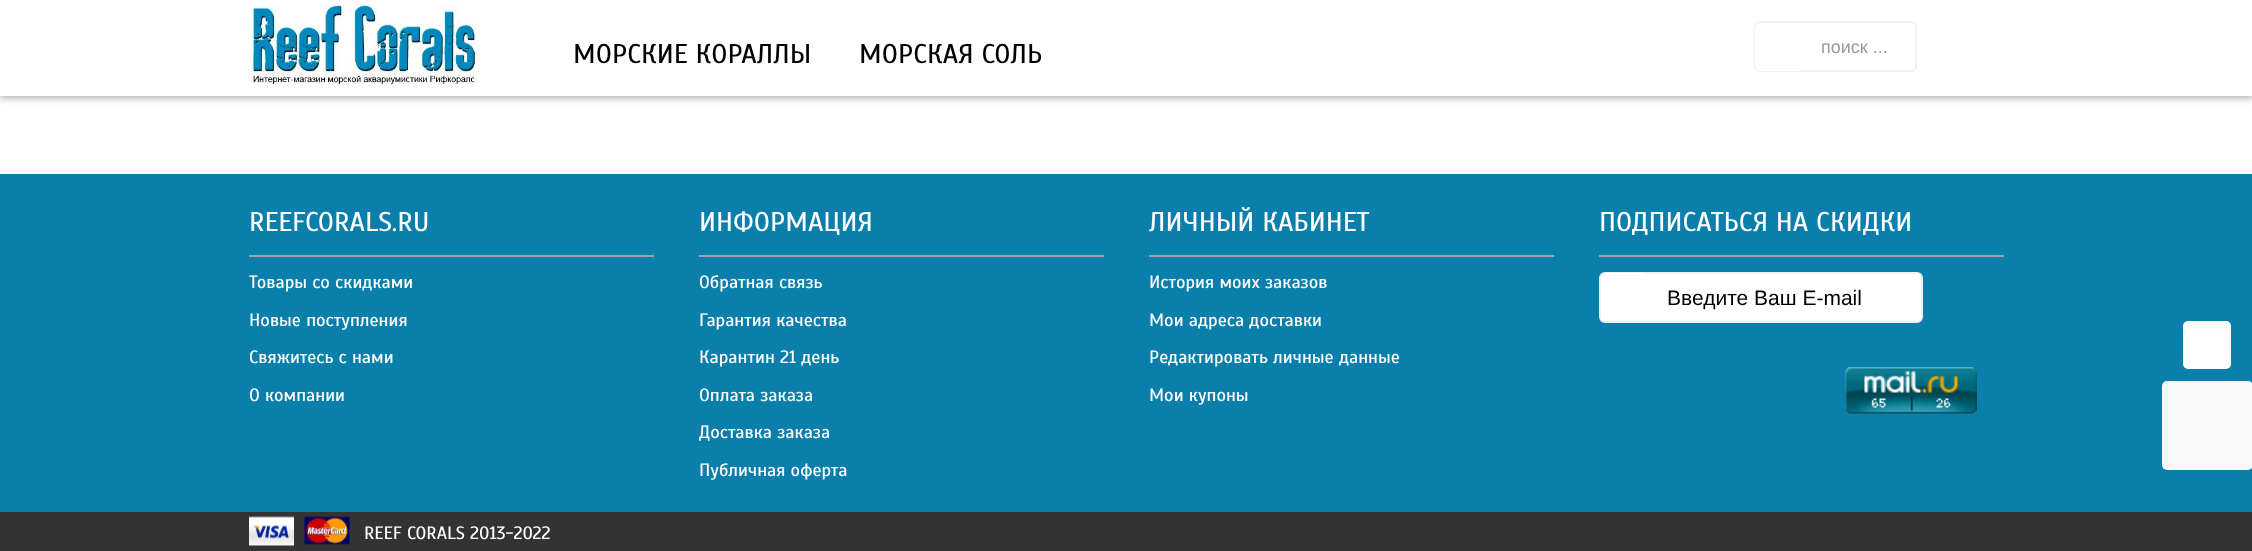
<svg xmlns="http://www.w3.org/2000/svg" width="2252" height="551">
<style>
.a{font:27px Scada;fill:#000}
.b{font:18px Liberation Sans;fill:#999}
.c{font:27px Scada;fill:#fff}
.d{font:18px Scada;fill:#fff}
.e{font:21px Liberation Sans;fill:#000}
</style>
<rect width="100%" height="100%" fill="#fff"/>
<path fill="#00000045" filter="blur(3px)" d="M0 3h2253v96H0z"/>
<path fill="#fff" d="M0 0h2252v96H0z"/>
<image href="1.png" x="249" y="4" width="230" height="82"/>
<rect fill="none" stroke="#f0f0f1" stroke-width="2" x="1755" y="22" width="161" height="49" rx="5"/>
<rect fill="#fff" x="1755" y="23" width="48" height="48" rx="5"/>
<path fill="#333" d="M0 512h2252v39H0z"/>
<path fill="#0a7fab" d="M0 174h2252v338H0z"/>
<path fill="#a3a3a3" d="M249 255h405v2H249z"/>
<path fill="#a3a3a3" d="M699 255h405v2H699z"/>
<path fill="#a3a3a3" d="M1149 255h405v2H1149z"/>
<path fill="#a3a3a3" d="M1599 255h405v2H1599z"/>
<rect fill="#fff" stroke="#f0f0f1" stroke-width="2" x="1600" y="273" width="322" height="49" rx="5"/>
<rect fill="#fff" x="1601" y="273" width="48" height="48" rx="5"/>
<image href="2.png" x="1844" y="367" width="133" height="47"/>
<image href="3.png" x="249" y="516" width="45" height="30"/>
<image href="4.png" x="304" y="516" width="46" height="29"/>
<rect fill="#fff" x="2183" y="321" width="48" height="48" rx="5"/>
<rect fill="#f8f8f8" x="2162" y="381" width="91" height="89" rx="5"/>
<text class="a" x="573" y="63">МОРСКИЕ КОРАЛЛЫ</text>
<text class="a" x="859" y="63">МОРСКАЯ СОЛЬ</text>
<text class="b" x="1821" y="53">поиск ...</text>
<text class="c" x="249" y="231">REEFCORALS.RU</text>
<text class="d" x="249" y="288">Товары со скидками</text>
<text class="d" x="249" y="326">Новые поступления</text>
<text class="d" x="249" y="363">Свяжитесь с нами</text>
<text class="d" x="249" y="401">О компании</text>
<text class="c" x="699" y="231">ИНФОРМАЦИЯ</text>
<text class="d" x="699" y="288">Обратная связь</text>
<text class="d" x="699" y="326">Гарантия качества</text>
<text class="d" x="699" y="363">Карантин 21 день</text>
<text class="d" x="699" y="401">Оплата заказа</text>
<text class="d" x="699" y="438">Доставка заказа</text>
<text class="d" x="699" y="476">Публичная оферта</text>
<text class="c" x="1149" y="231">ЛИЧНЫЙ КАБИНЕТ</text>
<text class="d" x="1149" y="288">История моих заказов</text>
<text class="d" x="1149" y="326">Мои адреса доставки</text>
<text class="d" x="1149" y="363">Редактировать личные данные</text>
<text class="d" x="1149" y="401">Мои купоны</text>
<text class="c" x="1599" y="231">ПОДПИСАТЬСЯ НА СКИДКИ</text>
<text class="e" x="1667" y="305">Введите Ваш E-mail</text>
<text class="d" x="364" y="539">REEF CORALS 2013-2022</text>
</svg>
